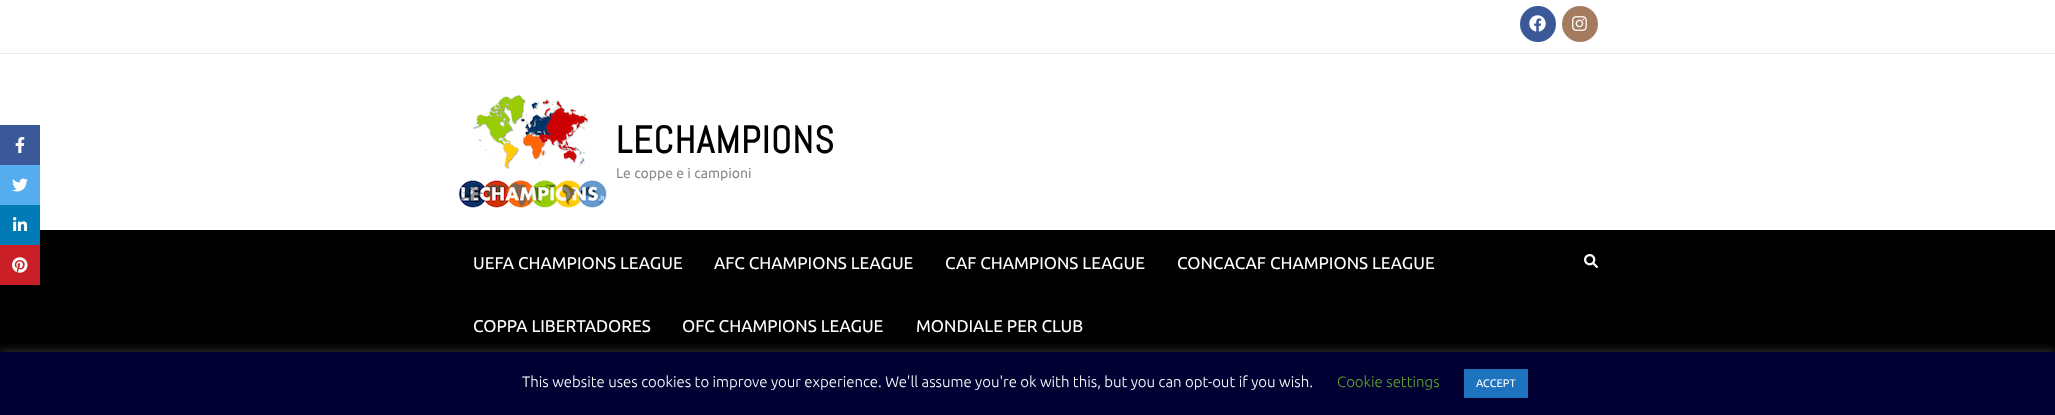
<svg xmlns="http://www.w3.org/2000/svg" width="2055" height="415">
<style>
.a{font:bold 38px Abel;letter-spacing:1px;fill:#000}
.b{font:14px Ubuntu;fill:#8e8e8e}
.c{font:17px Ubuntu;fill:#fff}
.d{font:300 15px Ubuntu;fill:#fff}
.e{font:300 15px Ubuntu;fill:#62a329}
.f{font:11px Ubuntu;fill:#fff}
</style>
<rect width="100%" height="100%" fill="#fff"/>
<path fill="#3b5998" d="M0 125h40v40H0z"/>
<image href="1.png" x="15" y="137" width="10" height="16"/>
<path fill="#55acee" d="M0 165h40v40H0z"/>
<image href="2.png" x="12" y="178" width="16" height="14"/>
<path fill="#000" d="M0 230h2055v122H0z"/>
<path fill="#007bb6" d="M0 205h40v40H0z"/>
<image href="3.png" x="13" y="217" width="14" height="14"/>
<path fill="#cb1f27" d="M0 245h40v40H0z"/>
<image href="4.png" x="12" y="257" width="16" height="16"/>
<path fill="#ebebeb" d="M0 53h2055v1H0z"/>
<circle fill="#3b5998" cx="1538" cy="24" r="18"/>
<image href="5.png" x="1529" y="15" width="17" height="17"/>
<circle fill="#a47b5f" cx="1580" cy="24" r="18"/>
<image href="6.png" x="1572" y="16" width="15" height="15"/>
<image href="7.png" x="458" y="94" width="149" height="114"/>
<image href="8.png" x="1584" y="254" width="14" height="14"/>
<path fill="#acabab4d" filter="blur(5px)" d="M0 351h2055v63H0z"/>
<path fill="#003" d="M0 352h2055v63H0z"/>
<path fill="#1e73be" d="M1464 369h64v29H1464z"/>
<text class="a" x="616" y="153">LECHAMPIONS</text>
<text class="b" x="616" y="178">Le coppe e i campioni</text>
<text class="c" x="473" y="269">UEFA CHAMPIONS LEAGUE</text>
<text class="c" x="714" y="269">AFC CHAMPIONS LEAGUE</text>
<text class="c" x="945" y="269">CAF CHAMPIONS LEAGUE</text>
<text class="c" x="1177" y="269">CONCACAF CHAMPIONS LEAGUE</text>
<text class="c" x="473" y="332">COPPA LIBERTADORES</text>
<text class="c" x="682" y="332">OFC CHAMPIONS LEAGUE</text>
<text class="c" x="916" y="332">MONDIALE PER CLUB</text>
<text class="d" x="522" y="387">This website uses cookies to improve your experience. We'll assume you're ok with this, but you can opt-out if you wish.</text>
<text class="e" x="1337" y="387">Cookie settings</text>
<text class="f" x="1476" y="387">ACCEPT</text>
</svg>
